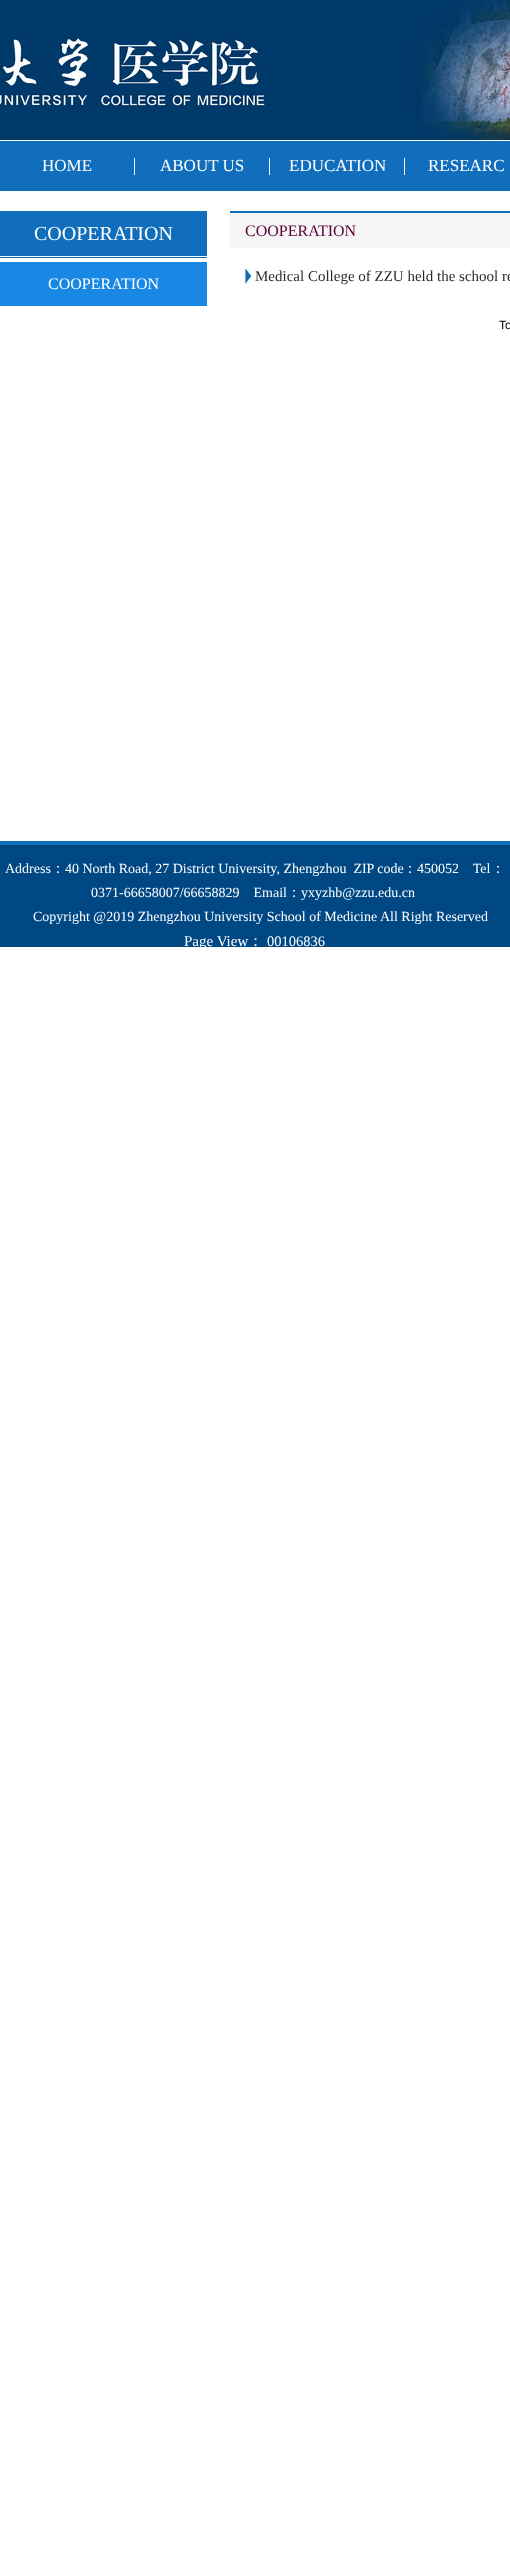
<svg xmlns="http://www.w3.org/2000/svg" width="510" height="2551">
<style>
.a{font:17px Liberation Serif;fill:#fff}
.b{font:20px Liberation Serif;fill:#fff}
.c{font:16px Liberation Serif;fill:#fff}
.d{font:16px Liberation Serif;fill:#560035}
.e{font:15px Liberation Serif;fill:#2b2b2b}
.f{font:12px Liberation Sans;fill:#000}
.g{font:14px Liberation Serif;fill:#fff}
.h{font:500 14px WenQuanYi Zen Hei;fill:#fff}
.i{font:15px Liberation Serif;fill:#fff}
.j{font:500 15px WenQuanYi Zen Hei;fill:#fff}
.k{font:14.5px Liberation Serif;fill:#fff}
</style>
<rect width="100%" height="100%" fill="#fff"/>
<image href="1.png" x="0" y="0" width="510" height="140"/>
<path fill="#116ebd" d="M0 141h510v50H0z"/>
<path fill="#fff" d="M134 158h1v17H134z"/>
<path fill="#fff" d="M269 158h1v17H269z"/>
<path fill="#fff" d="M404 158h1v17H404z"/>
<path fill="#116ebd" d="M0 211h207v45H0z"/>
<path fill="#116ebd" d="M0 257h207v1H0z"/>
<path fill="#1987e4" d="M0 262h207v44H0z"/>
<path fill="#f6f6f6" d="M230 213h280v35H230z"/>
<path fill="#116ebd" d="M230 211h280v2H230z"/>
<image href="2.png" x="245" y="269" width="6" height="15"/>
<path fill="#004884" d="M0 845h510v102H0z"/>
<path fill="#116ebd" d="M0 841h510v4H0z"/>
<text class="a" x="42" y="171">HOME</text>
<text class="a" x="160" y="171">ABOUT US</text>
<text class="a" x="289" y="171">EDUCATION</text>
<text class="a" x="428" y="171">RESEARC</text>
<text class="b" x="34" y="240">COOPERATION</text>
<text class="c" x="48" y="289">COOPERATION</text>
<text class="d" x="245" y="236">COOPERATION</text>
<text class="e" x="255" y="281">Medical College of ZZU held the school re</text>
<text class="f" x="499" y="329">To</text>
<text class="g" x="5" y="873">Address</text>
<text class="h" x="51" y="873">：</text>
<text class="g" xml:space="preserve" x="65" y="873">40 North Road, 27 District University, Zhengzhou  ZIP code</text>
<text class="h" x="403" y="873">：</text>
<text class="g" xml:space="preserve" x="417" y="873">450052    Tel</text>
<text class="h" x="491" y="873">：</text>
<text class="g" xml:space="preserve" x="91" y="897">0371-66658007/66658829    Email</text>
<text class="h" x="287" y="897">：</text>
<text class="g" x="301" y="897">yxyzhb@zzu.edu.cn</text>
<text class="g" x="33" y="921">Copyright @2019 Zhengzhou University School of Medicine All Right Reserved</text>
<text class="i" x="184" y="946">Page View</text>
<text class="j" x="248" y="946">：</text>
<text class="k" x="267" y="946">00106836</text>
</svg>
